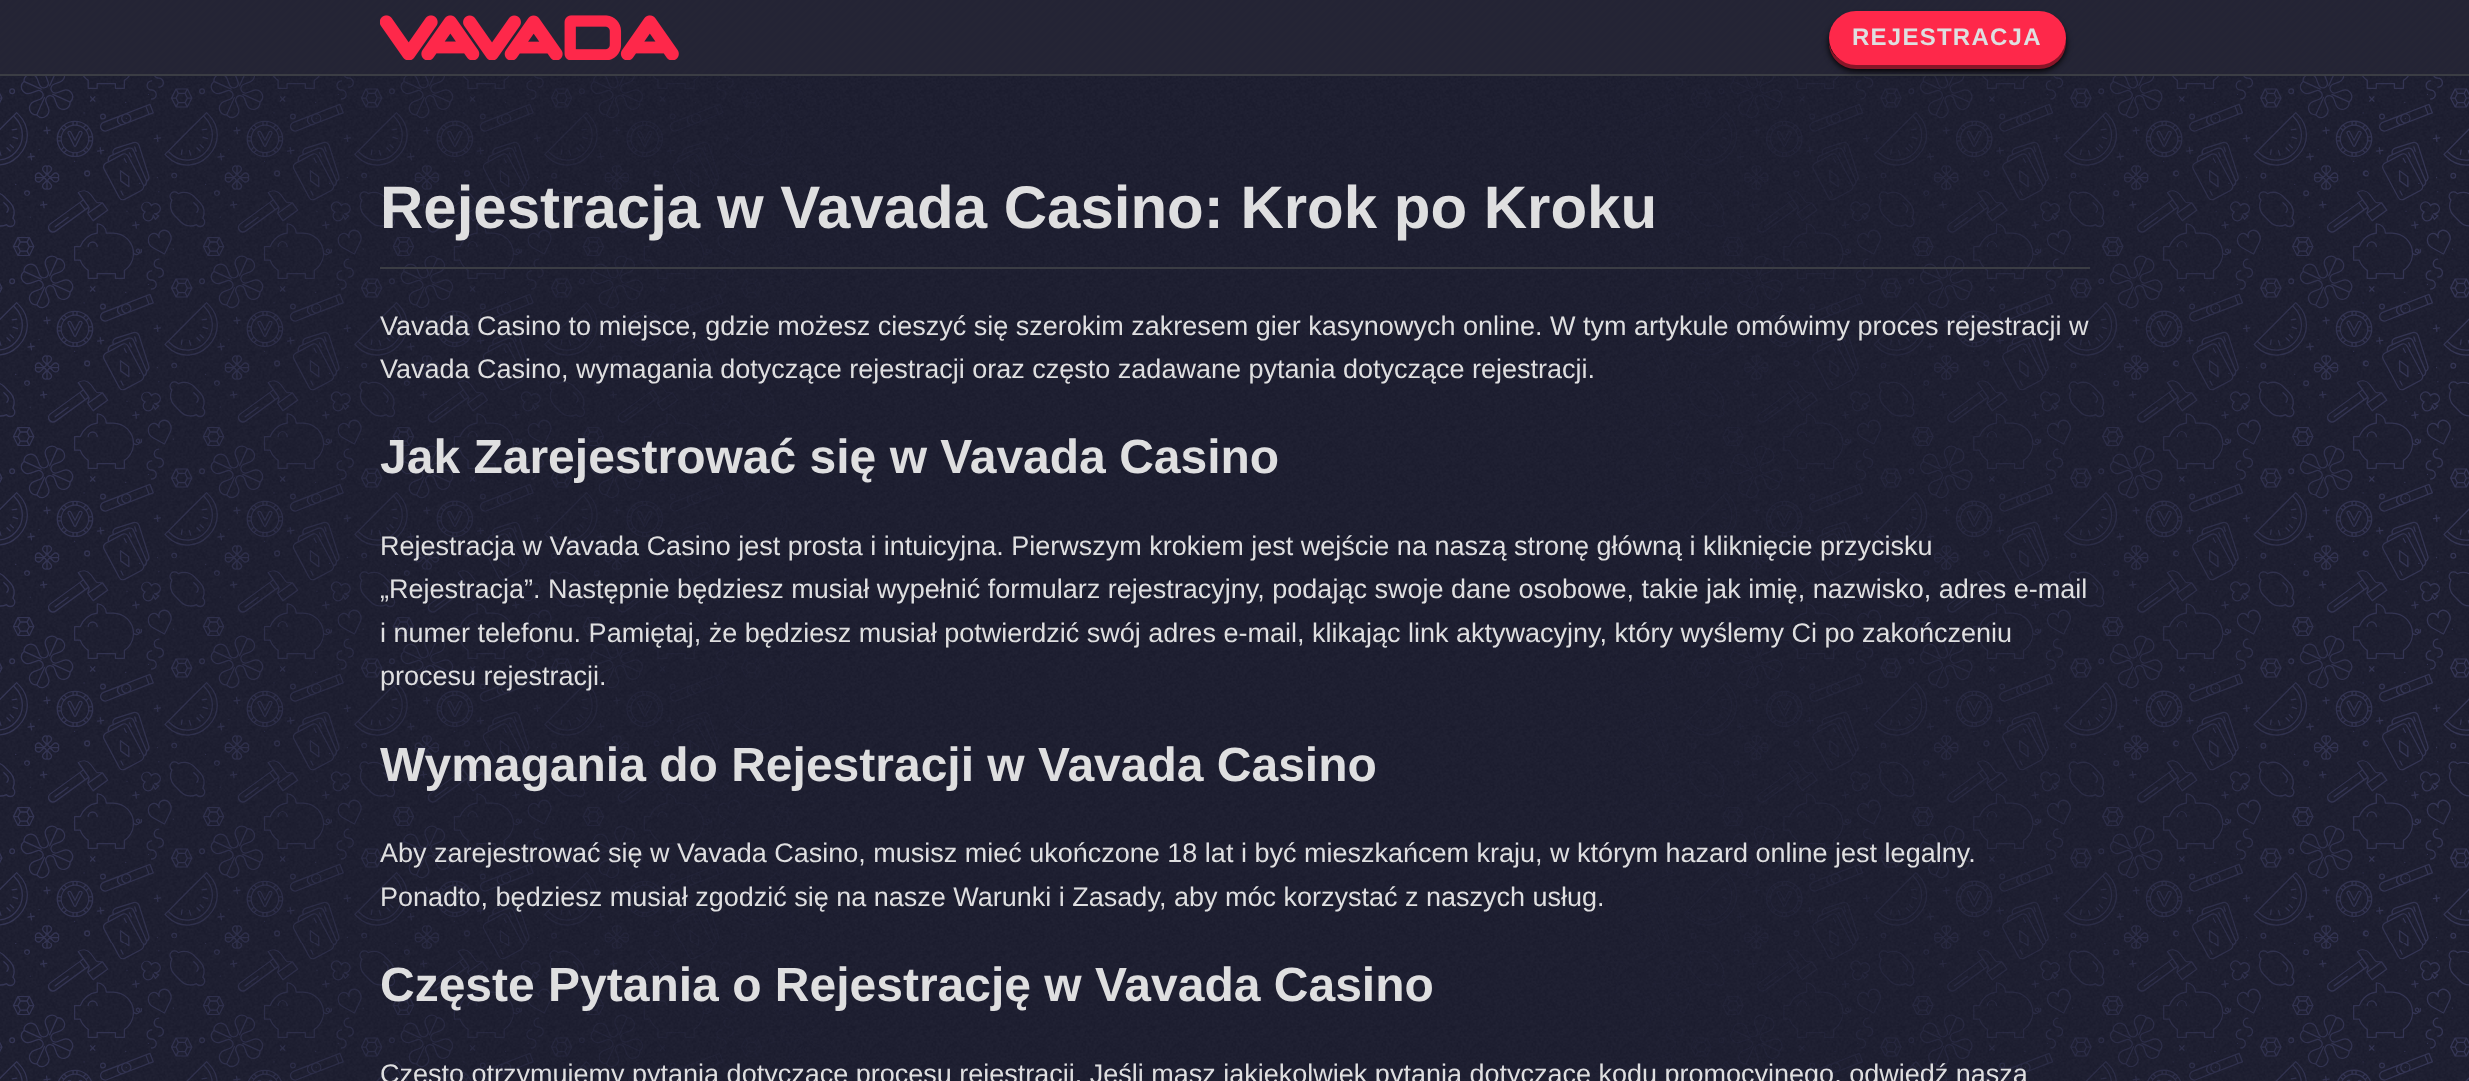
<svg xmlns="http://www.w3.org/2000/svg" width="2469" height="1081">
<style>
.a{font:bold 24px Liberation Sans;letter-spacing:1.25px;fill:#dfdfe0}
.b{font:bold 60px Liberation Sans;fill:#dfdfe0}
.c{font:27px Liberation Sans;fill:#dfdfe0}
.d{font:bold 48px Liberation Sans;fill:#dfdfe0}
</style>
<rect width="100%" height="100%" fill="#292a2f"/>
<image href="1.png" x="0" y="0" width="2469" height="74"/>
<path fill="#252536f2" d="M0 0h2469v74H0z"/>
<path fill="#3b3d44" d="M0 74h2469v2H0z"/>
<image href="2.png" x="380" y="15" width="299" height="45"/>
<path fill="#101226" d="M0 76h2469v1005H0z"/>
<image href="3.png" x="0" y="76" width="2469" height="1005"/>
<image href="4.png" x="0" y="76" width="2469" height="1005"/>
<rect fill="#000" filter="blur(3px)" x="1829" y="17" width="237" height="54" rx="27"/>
<path fill="#871628" d="M1829 43c0 14 12 26 27 26h183c15 0 27-12 27-27l-1-5l1 1c0 14-13 26-28 26h-182c-14 0-25-9-27-21z"/>
<rect fill="#fe284a" x="1829" y="11" width="237" height="54" rx="27"/>
<path fill="#3b3d44" d="M380 267h1710v2H380z"/>
<text class="a" x="1852" y="45">REJESTRACJA</text>
<text class="b" x="380" y="228">Rejestracja w Vavada Casino: Krok po Kroku</text>
<text class="c" x="380" y="335">Vavada Casino to miejsce, gdzie możesz cieszyć się szerokim zakresem gier kasynowych online. W tym artykule omówimy proces rejestracji w</text>
<text class="c" x="380" y="378">Vavada Casino, wymagania dotyczące rejestracji oraz często zadawane pytania dotyczące rejestracji.</text>
<text class="d" x="380" y="473">Jak Zarejestrować się w Vavada Casino</text>
<text class="c" x="380" y="555">Rejestracja w Vavada Casino jest prosta i intuicyjna. Pierwszym krokiem jest wejście na naszą stronę główną i kliknięcie przycisku</text>
<text class="c" x="380" y="598">„Rejestracja”. Następnie będziesz musiał wypełnić formularz rejestracyjny, podając swoje dane osobowe, takie jak imię, nazwisko, adres e-mail</text>
<text class="c" x="380" y="642">i numer telefonu. Pamiętaj, że będziesz musiał potwierdzić swój adres e-mail, klikając link aktywacyjny, który wyślemy Ci po zakończeniu</text>
<text class="c" x="380" y="685">procesu rejestracji.</text>
<text class="d" x="380" y="781">Wymagania do Rejestracji w Vavada Casino</text>
<text class="c" x="380" y="862">Aby zarejestrować się w Vavada Casino, musisz mieć ukończone 18 lat i być mieszkańcem kraju, w którym hazard online jest legalny.</text>
<text class="c" x="380" y="906">Ponadto, będziesz musiał zgodzić się na nasze Warunki i Zasady, aby móc korzystać z naszych usług.</text>
<text class="d" x="380" y="1001">Częste Pytania o Rejestrację w Vavada Casino</text>
<text class="c" x="380" y="1083">Często otrzymujemy pytania dotyczące procesu rejestracji. Jeśli masz jakiekolwiek pytania dotyczące kodu promocyjnego, odwiedź naszą</text>
</svg>
